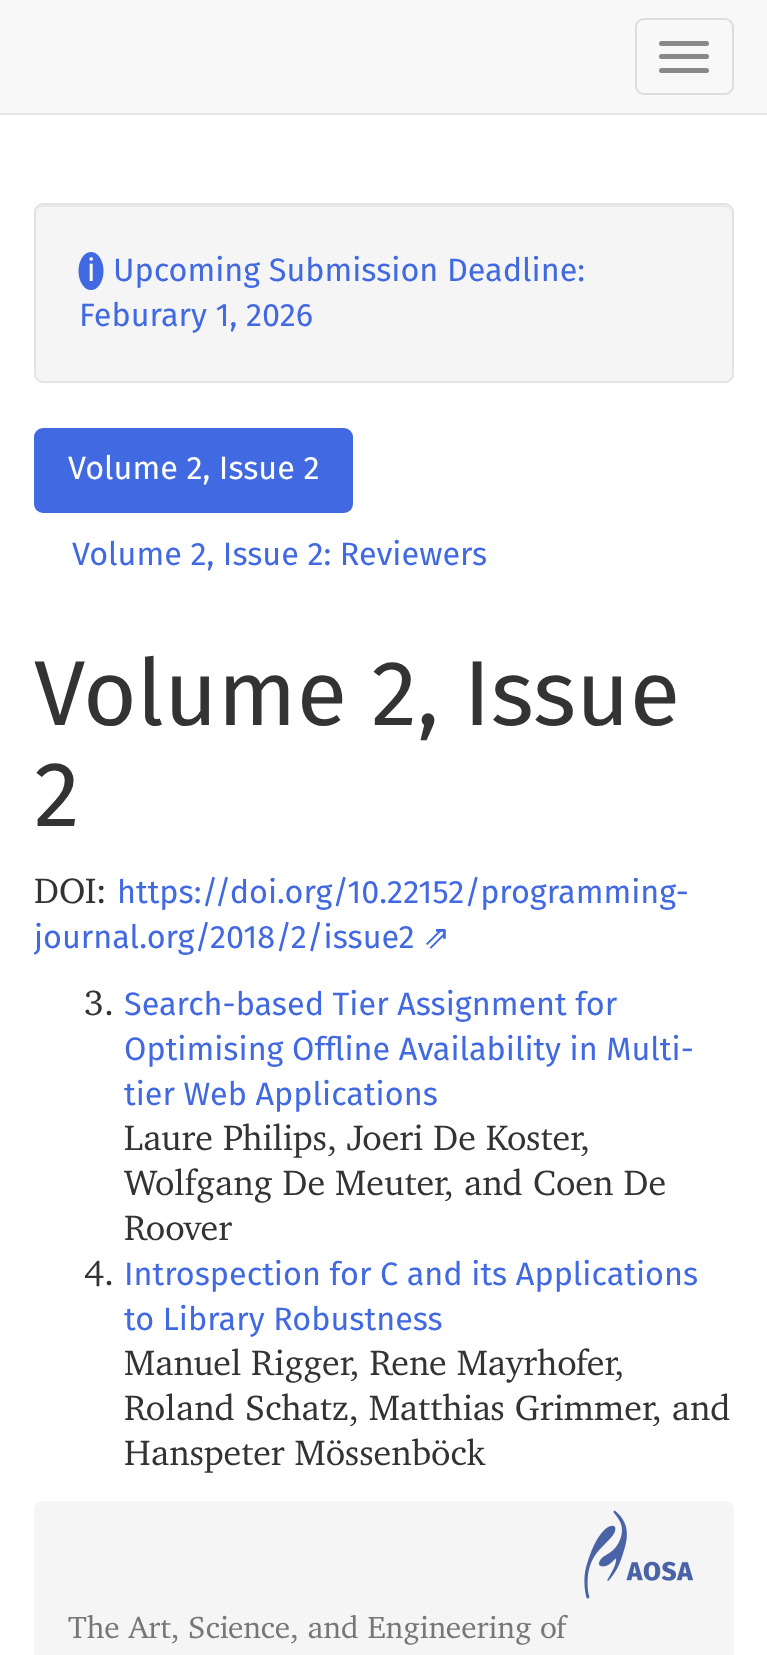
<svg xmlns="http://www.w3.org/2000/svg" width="767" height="1655">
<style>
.a{font:32.4px Noto Sans;fill:#fff}
.b{font:32.4px Fira Sans;fill:#4169e1}
.c{font:32.4px Fira Sans;fill:#fff}
.d{font:92.25px Fira Sans;fill:#333}
.e{font:36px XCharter;fill:#333}
.f{font:32.4px DejaVu Sans;fill:#4169e1}
.g{font:31.3px XCharter;fill:#777}
</style>
<rect width="100%" height="100%" fill="#fff"/>
<path fill="#f8f8f8" d="M0 0h767v113H0z"/>
<path fill="#e7e7e7" d="M0 113h767v2H0z"/>
<rect fill="none" stroke="#ddd" stroke-width="2" x="636" y="19" width="97" height="75" rx="8"/>
<rect fill="#888" x="659" y="41" width="50" height="5" rx="2.5"/>
<rect fill="#888" x="659" y="54" width="50" height="5" rx="2.5"/>
<rect fill="#888" x="659" y="68" width="50" height="5" rx="2.5"/>
<rect fill="#f5f5f5" x="34" y="203" width="700" height="180" rx="9"/>
<path fill="#e9e9e9" d="M43 207h681c4 0 7 3 7 7c0-4-2-9-7-9h-681c-5 0-7 5-7 9c0-4 3-7 7-7z"/>
<rect fill="none" stroke="#e3e3e3" stroke-width="2" x="35" y="204" width="698" height="178" rx="8"/>
<ellipse fill="#4169e1" cx="91" cy="271" rx="12.5" ry="19"/>
<rect fill="#4169e1" x="34" y="428" width="319" height="85" rx="9"/>
<rect fill="#f5f5f5" x="34" y="1501" width="700" height="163" rx="9"/>
<image href="1.png" x="584" y="1510" width="110" height="89"/>
<text class="a" x="87" y="281">ℹ︎</text>
<text class="b" x="113" y="281">Upcoming Submission Deadline:</text>
<text class="b" x="79" y="326">Feburary 1, 2026</text>
<text class="c" x="68" y="479">Volume 2, Issue 2</text>
<text class="b" x="72" y="565">Volume 2, Issue 2: Reviewers</text>
<text class="d" x="34" y="725">Volume 2, Issue</text>
<text class="d" x="34" y="826">2</text>
<text class="e" x="34" y="903">DOI:</text>
<text class="b" x="117" y="903">https://doi.org/10.22152/programming-</text>
<text class="b" x="34" y="948">journal.org/2018/2/issue2</text>
<text class="f" x="423" y="948">⇗</text>
<text class="e" x="84" y="1015">3.</text>
<text class="b" x="124" y="1015">Search-based Tier Assignment for</text>
<text class="b" x="124" y="1060">Optimising Offline Availability in Multi-</text>
<text class="b" x="124" y="1105">tier Web Applications</text>
<text class="e" x="124" y="1150">Laure Philips, Joeri De Koster,</text>
<text class="e" x="124" y="1195">Wolfgang De Meuter, and Coen De</text>
<text class="e" x="124" y="1240">Roover</text>
<text class="e" x="84" y="1285">4.</text>
<text class="b" x="124" y="1285">Introspection for C and its Applications</text>
<text class="b" x="124" y="1330">to Library Robustness</text>
<text class="e" x="124" y="1375">Manuel Rigger, Rene Mayrhofer,</text>
<text class="e" x="124" y="1420">Roland Schatz, Matthias Grimmer, and</text>
<text class="e" x="124" y="1465">Hanspeter Mössenböck</text>
<text class="g" x="68" y="1638">The Art, Science, and Engineering of</text>
</svg>
